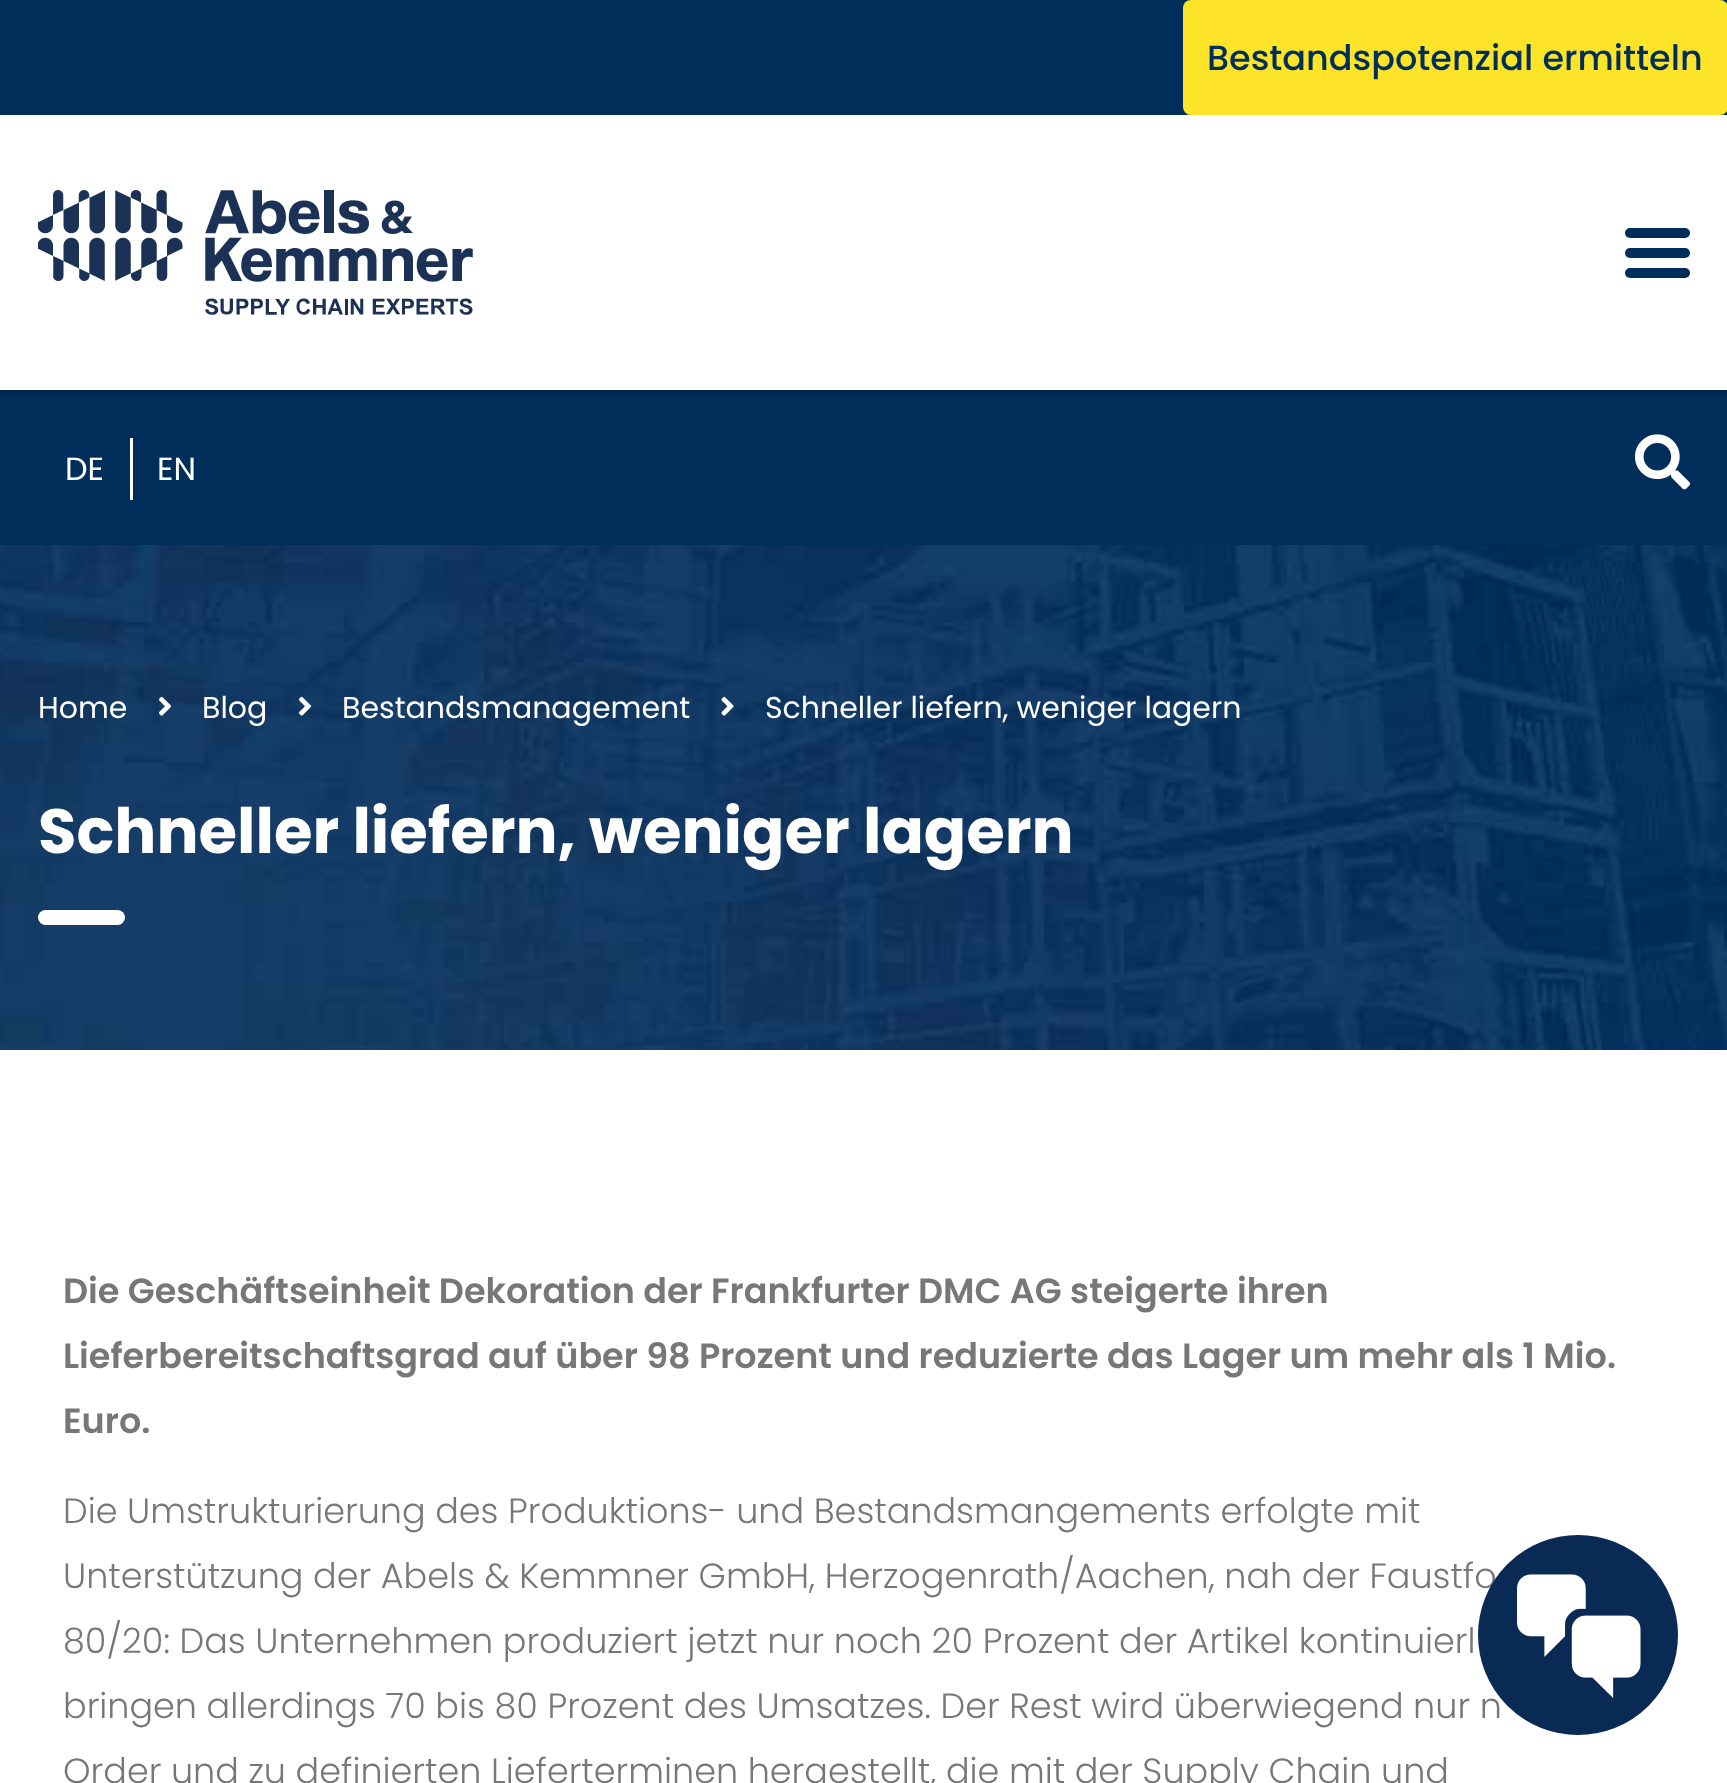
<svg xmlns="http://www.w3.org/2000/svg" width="1727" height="1783">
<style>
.a{font:500 35px Poppins;fill:#002e5b}
.b{font:32px Poppins;fill:#fff}
.c{font:30px Poppins;fill:#fff}
.d{font:bold 62.5px Poppins;fill:#fff}
.e{font:600 35px Poppins;fill:#777}
.f{font:300 35px Poppins;fill:#777}
</style>
<rect width="100%" height="100%" fill="#fff"/>
<path fill="#002e5b" d="M0 390h1727v155H0z"/>
<path fill="#00000085" filter="blur(6px)" d="M0 0h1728v390H0z"/>
<path fill="#002e5b" d="M0 0h1727v115H0z"/>
<rect fill="#fde428" x="1183" width="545" height="115" rx="8"/>
<path fill="#fff" d="M0 115h1727v275H0z"/>
<image href="1.png" x="38" y="190" width="435" height="125"/>
<rect fill="#002e5b" x="1625" y="248" width="65" height="10" rx="5"/>
<rect fill="#002e5b" x="1625" y="228" width="65" height="10" rx="5"/>
<rect fill="#002e5b" x="1625" y="268" width="65" height="10" rx="5"/>
<path fill="#fff" d="M130 438h3v62H130z"/>
<image href="2.png" x="1635" y="434" width="55" height="56"/>
<image href="3.png" x="0" y="545" width="1727" height="505"/>
<image href="4.png" x="159" y="696" width="12" height="20"/>
<image href="5.png" x="299" y="696" width="12" height="20"/>
<image href="6.png" x="721" y="696" width="13" height="20"/>
<rect fill="#fff" x="38" y="910" width="87" height="15" rx="7.5"/>
<text class="a" x="1207" y="70">Bestandspotenzial ermitteln</text>
<text class="b" x="65" y="480">DE</text>
<text class="b" x="157" y="480">EN</text>
<text class="c" x="38" y="718">Home</text>
<text class="c" x="202" y="718">Blog</text>
<text class="c" x="342" y="718">Bestandsmanagement</text>
<text class="c" x="765" y="718">Schneller liefern, weniger lagern</text>
<text class="d" x="38" y="853">Schneller liefern, weniger lagern</text>
<text class="e" x="63" y="1303">Die Geschäftseinheit Dekoration der Frankfurter DMC AG steigerte ihren</text>
<text class="e" x="63" y="1368">Lieferbereitschaftsgrad auf über 98 Prozent und reduzierte das Lager um mehr als 1 Mio.</text>
<text class="e" x="63" y="1433">Euro.</text>
<text class="f" x="63" y="1523">Die Umstrukturierung des Produktions- und Bestandsmangements erfolgte mit</text>
<text class="f" x="63" y="1588">Unterstützung der Abels &amp; Kemmner GmbH, Herzogenrath/Aachen, nah der Faustfo</text>
<text class="f" x="63" y="1653">80/20: Das Unternehmen produziert jetzt nur noch 20 Prozent der Artikel kontinuierl</text>
<text class="f" x="63" y="1718">bringen allerdings 70 bis 80 Prozent des Umsatzes. Der Rest wird überwiegend nur n</text>
<text class="f" x="63" y="1783">Order und zu definierten Lieferterminen hergestellt, die mit der Supply Chain und</text>
<circle fill="#0a2a56" stroke="#0a2a56" stroke-width="8" cx="1578" cy="1635" r="96"/>
<image href="7.png" x="1517" y="1574" width="124" height="124"/>
</svg>
